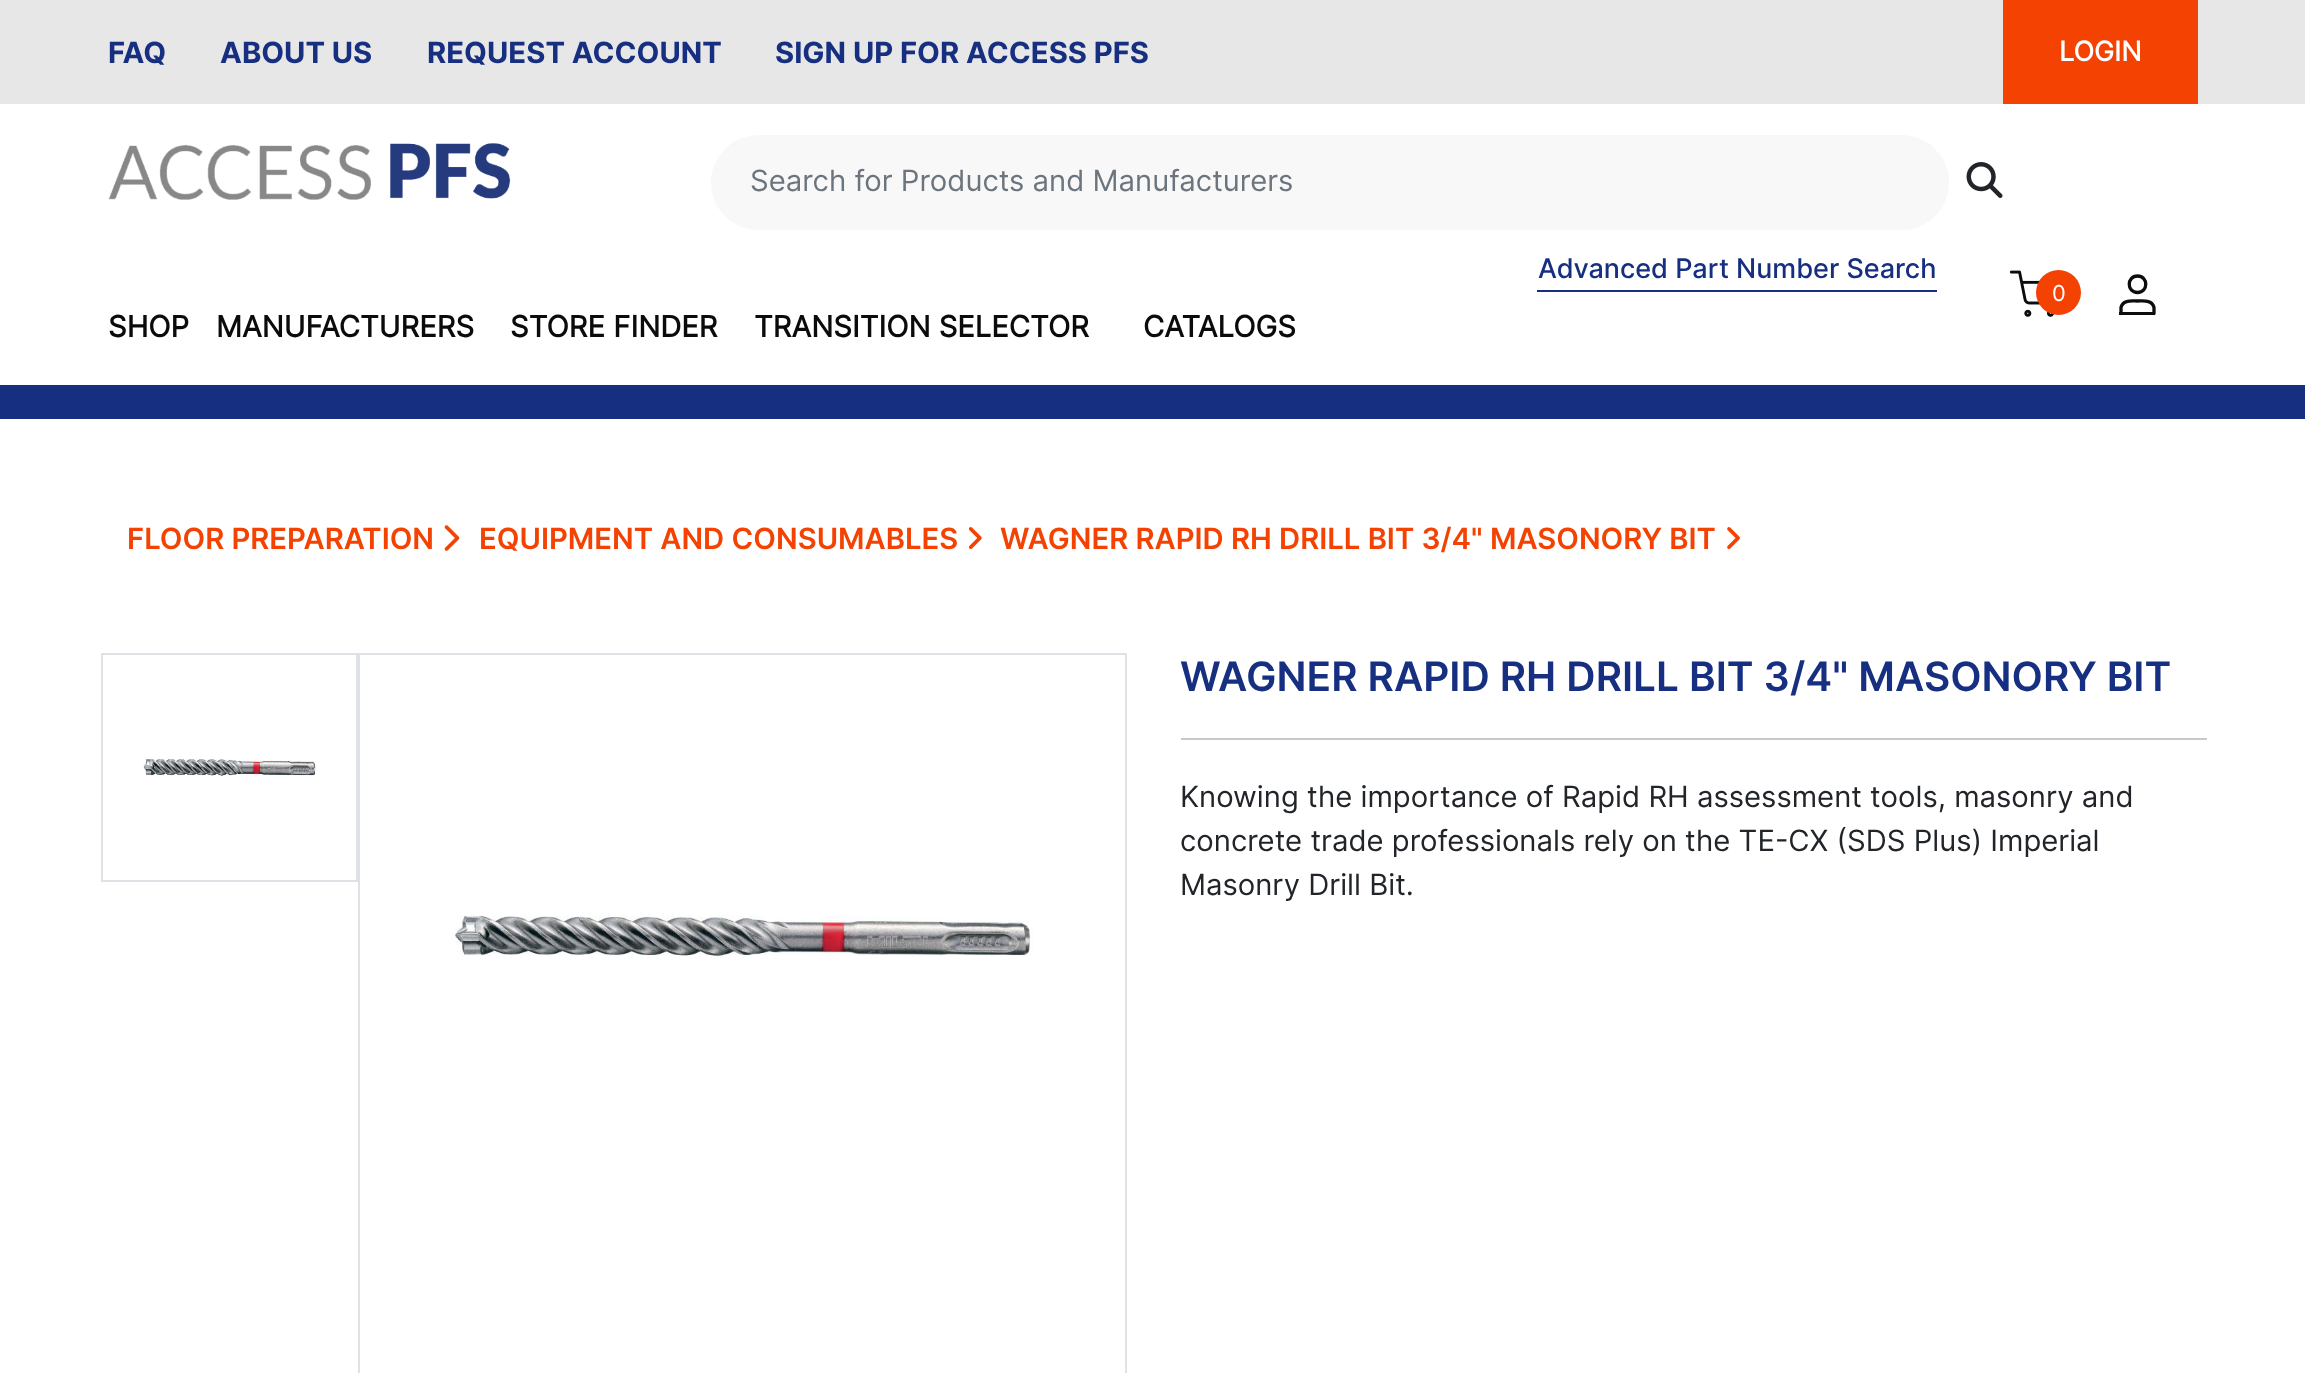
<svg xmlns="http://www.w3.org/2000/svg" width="2305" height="1373">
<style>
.a{font:bold 29.25px Inter;fill:#172f81}
.b{font:bold 27px 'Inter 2';fill:#fff}
.c{font:29.25px Inter;fill:#6c757d}
.d{font:500 27px Inter;fill:#172f81}
.e{font:22px Inter;fill:#fff}
.f{font:bold 29.25px 'Inter 2';fill:#0b0b0b}
.g{font:600 29.25px Inter;fill:#f34201}
.h{font:600 40.5px Inter;fill:#172f81}
.i{font:29.25px Inter;fill:#212529}
</style>
<rect width="100%" height="100%" fill="#fff"/>
<path fill="#172f81" d="M0 385h2305v34H0z"/>
<path fill="#e7e7e7" d="M0 0h2305v104H0z"/>
<path fill="#f34201" d="M2003 0h195v104H2003z"/>
<image href="1.png" x="108" y="143" width="403" height="57"/>
<rect fill="#f8f8f8" x="711" y="135" width="1238" height="95" rx="47.5"/>
<image href="2.png" x="1966" y="162" width="37" height="36"/>
<path fill="#172f81" d="M1537 290h400v2H1537z"/>
<image href="3.png" x="2009" y="270" width="45" height="47"/>
<circle fill="#f34201" cx="2058.5" cy="292.5" r="22.5"/>
<path fill="none" stroke="#0d0d0d" stroke-width="3.3" stroke-linecap="round" stroke-linejoin="round" d="M2154 313.5v-6c-2-8-10.5-6.5-16.5-6.5c-6 0-14.5-1.5-16.5 6.5v6m16.5-21c11 0 11-16.5 0-16.5c-11 0-11 16.5 0 16.5z"/>
<path fill="#0d0d0d" d="M2119 312h35v3H2119z"/>
<image href="4.png" x="444" y="525" width="16" height="26"/>
<image href="5.png" x="968" y="527" width="14" height="22"/>
<image href="6.png" x="1727" y="527" width="13" height="22"/>
<path fill="none" stroke="#dee2e6" stroke-width="2" d="M102 654h255v227H102z"/>
<image href="7.png" x="143" y="758" width="173" height="18"/>
<path fill="none" stroke="#dee2e6" stroke-width="2" d="M359 654h767v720H359z"/>
<image href="8.png" x="452" y="915" width="582" height="42"/>
<path fill="#c8c9ca" d="M1181 738h1026v2H1181z"/>
<text class="a" x="108" y="63">FAQ</text>
<text class="a" x="220" y="63">ABOUT US</text>
<text class="a" x="427" y="63">REQUEST ACCOUNT</text>
<text class="a" x="775" y="63">SIGN UP FOR ACCESS PFS</text>
<text class="b" x="2059" y="61">LOGIN</text>
<text class="c" x="750" y="191">Search for Products and Manufacturers</text>
<text class="d" x="1538" y="278">Advanced Part Number Search</text>
<text class="e" x="2052" y="301">0</text>
<text class="f" x="108" y="337">SHOP</text>
<text class="f" x="216" y="337">MANUFACTURERS</text>
<text class="f" x="510" y="337">STORE FINDER</text>
<text class="f" x="754" y="337">TRANSITION SELECTOR</text>
<text class="f" x="1143" y="337">CATALOGS</text>
<text class="g" x="127" y="549">FLOOR PREPARATION</text>
<text class="g" x="479" y="549">EQUIPMENT AND CONSUMABLES</text>
<text class="g" x="1000" y="549">WAGNER RAPID RH DRILL BIT 3/4" MASONORY BIT</text>
<text class="h" x="1180" y="691">WAGNER RAPID RH DRILL BIT 3/4" MASONORY BIT</text>
<text class="i" x="1180" y="807">Knowing the importance of Rapid RH assessment tools, masonry and</text>
<text class="i" x="1180" y="851">concrete trade professionals rely on the TE-CX (SDS Plus) Imperial</text>
<text class="i" x="1180" y="895">Masonry Drill Bit.</text>
</svg>
